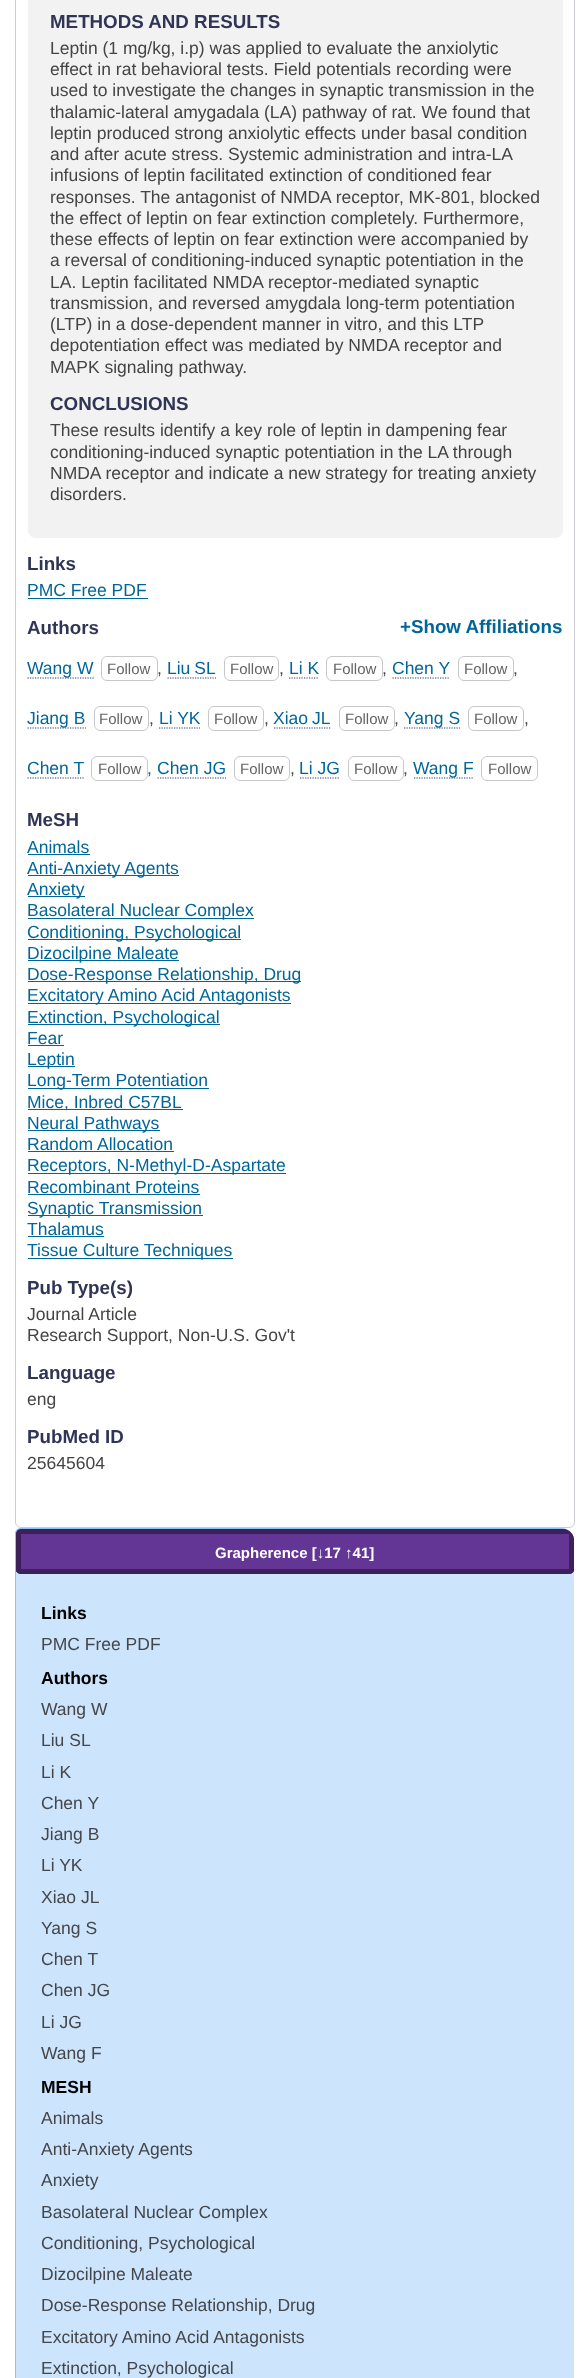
<svg xmlns="http://www.w3.org/2000/svg" width="587" height="2378">
<style>
.a{font:bold 18.75px Liberation Sans;fill:#303556}
.b{font:17.5px Liberation Sans;fill:#444}
.c{font:17.5px Liberation Sans;fill:#069}
.d{font:bold 18.75px Liberation Sans;fill:#069}
.e{font:15px Liberation Sans;fill:#646464}
.f{font:bold 15px Liberation Sans;fill:#fff}
.g{font:bold 17.5px Liberation Sans;fill:#000}
.h{font:17.5px Liberation Sans;fill:#45464a}
</style>
<rect width="100%" height="100%" fill="#fff"/>
<rect fill="none" stroke="#cbcfd4" x="15.5" y="-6.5" width="559" height="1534" rx="5.5"/>
<path fill="#f2f2f2" d="M28-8h535v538c0 4.5-3.5 8-8 8h-519c-4.5 0-8-3.5-8-8z"/>
<path fill="#069" d="M28 598h120v1H28z"/>
<path fill="none" stroke="#2d3e75" stroke-width="1.2" stroke-dasharray="1.25 1.25" d="M27.5 678h66.5"/>
<rect fill="none" stroke="#c8c8c8" x="101.5" y="656.5" width="56" height="24" rx="5.5"/>
<path fill="none" stroke="#2d3e75" stroke-width="1.2" stroke-dasharray="1.25 1.25" d="M167.5 678h48.5"/>
<rect fill="none" stroke="#c8c8c8" x="224.5" y="656.5" width="54" height="24" rx="5.5"/>
<path fill="none" stroke="#2d3e75" stroke-width="1.2" stroke-dasharray="1.25 1.25" d="M289 678h30"/>
<rect fill="none" stroke="#c8c8c8" x="326.5" y="656.5" width="56" height="24" rx="5.5"/>
<path fill="none" stroke="#2d3e75" stroke-width="1.2" stroke-dasharray="1.25 1.25" d="M392.5 678h57.5"/>
<rect fill="none" stroke="#c8c8c8" x="458.5" y="656.5" width="55" height="24" rx="5.5"/>
<path fill="none" stroke="#2d3e75" stroke-width="1.2" stroke-dasharray="1.25 1.25" d="M27.5 728h58.5"/>
<rect fill="none" stroke="#c8c8c8" x="94.5" y="706.5" width="54" height="24" rx="5.5"/>
<path fill="none" stroke="#2d3e75" stroke-width="1.2" stroke-dasharray="1.25 1.25" d="M159 728h41"/>
<rect fill="none" stroke="#c8c8c8" x="208.5" y="706.5" width="55" height="24" rx="5.5"/>
<path fill="none" stroke="#2d3e75" stroke-width="1.2" stroke-dasharray="1.25 1.25" d="M274 728h57"/>
<rect fill="none" stroke="#c8c8c8" x="339.5" y="706.5" width="55" height="24" rx="5.5"/>
<path fill="none" stroke="#2d3e75" stroke-width="1.2" stroke-dasharray="1.25 1.25" d="M404 728h56"/>
<rect fill="none" stroke="#c8c8c8" x="468.5" y="706.5" width="55" height="24" rx="5.5"/>
<path fill="none" stroke="#2d3e75" stroke-width="1.2" stroke-dasharray="1.25 1.25" d="M27.5 778h56.5"/>
<rect fill="none" stroke="#c8c8c8" x="91.5" y="756.5" width="56" height="24" rx="5.5"/>
<path fill="none" stroke="#2d3e75" stroke-width="1.2" stroke-dasharray="1.25 1.25" d="M157.5 778h68.5"/>
<rect fill="none" stroke="#c8c8c8" x="234.5" y="756.5" width="55" height="24" rx="5.5"/>
<path fill="none" stroke="#2d3e75" stroke-width="1.2" stroke-dasharray="1.25 1.25" d="M300 778h40"/>
<rect fill="none" stroke="#c8c8c8" x="348.5" y="756.5" width="55" height="24" rx="5.5"/>
<path fill="none" stroke="#2d3e75" stroke-width="1.2" stroke-dasharray="1.25 1.25" d="M414 778h60"/>
<rect fill="none" stroke="#c8c8c8" x="481.5" y="756.5" width="56" height="24" rx="5.5"/>
<path fill="#069" d="M28 854h62v1H28z"/>
<path fill="#069" d="M28 875h151v1H28z"/>
<path fill="#069" d="M28 896h57v1H28z"/>
<path fill="#069" d="M28 918h226v1H28z"/>
<path fill="#069" d="M28 939h213v1H28z"/>
<path fill="#069" d="M28 960h151v1H28z"/>
<path fill="#069" d="M28 981h273v1H28z"/>
<path fill="#069" d="M28 1003h263v1H28z"/>
<path fill="#069" d="M28 1024h192v1H28z"/>
<path fill="#069" d="M28 1045h36v1H28z"/>
<path fill="#069" d="M28 1066h47v1H28z"/>
<path fill="#069" d="M28 1088h181v1H28z"/>
<path fill="#069" d="M28 1109h155v1H28z"/>
<path fill="#069" d="M28 1130h132v1H28z"/>
<path fill="#069" d="M28 1151h146v1H28z"/>
<path fill="#069" d="M28 1173h258v1H28z"/>
<path fill="#069" d="M28 1194h172v1H28z"/>
<path fill="#069" d="M28 1215h175v1H28z"/>
<path fill="#069" d="M28 1236h76v1H28z"/>
<path fill="#069" d="M28 1258h205v1H28z"/>
<path fill="#cce4fc" d="M21 1528h540c7 0 13 6 13 13v837c0 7-6 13-13 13h-540c-3.5 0-6-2.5-6-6v-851c0-3.5 2.5-6 6-6z"/>
<path fill="#88c2fa" fill-rule="evenodd" d="M21 1528h540c7 0 13 5 13 12v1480c0 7-6 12-13 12h-540c-3 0-6-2-6-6v-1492c0-4 3-6 6-6zm0 1h540c7 0 13 5 13 11v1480c0 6-6 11-13 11h-540c-3 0-5-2-5-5v-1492c0-3 2-5 5-5z"/>
<path fill="#633696" d="M21 1529h543c6 1 10 6 10 11v31c-1 2-3 3-5 3h-548c-2 0-4-1-5-3v-37c0-2 1-3 2-4c0 0 2-1 3-1z"/>
<path fill="#3b205a" fill-rule="evenodd" d="M21 1529h543c6 1 10 6 10 11v31c-1 2-3 3-5 3h-548c-2 0-4-1-5-3v-37c0-2 1-3 2-4c0 0 2-1 3-1zm0 5v35h548v-35z"/>
<text class="a" x="50" y="28">METHODS AND RESULTS</text>
<text class="b" x="50" y="54">Leptin (1 mg/kg, i.p) was applied to evaluate the anxiolytic</text>
<text class="b" x="50" y="75">effect in rat behavioral tests. Field potentials recording were</text>
<text class="b" x="50" y="96">used to investigate the changes in synaptic transmission in the</text>
<text class="b" x="50" y="118">thalamic-lateral amygadala (LA) pathway of rat. We found that</text>
<text class="b" x="50" y="139">leptin produced strong anxiolytic effects under basal condition</text>
<text class="b" x="50" y="160">and after acute stress. Systemic administration and intra-LA</text>
<text class="b" x="50" y="181">infusions of leptin facilitated extinction of conditioned fear</text>
<text class="b" x="50" y="203">responses. The antagonist of NMDA receptor, MK-801, blocked</text>
<text class="b" x="50" y="224">the effect of leptin on fear extinction completely. Furthermore,</text>
<text class="b" x="50" y="245">these effects of leptin on fear extinction were accompanied by</text>
<text class="b" x="50" y="266">a reversal of conditioning-induced synaptic potentiation in the</text>
<text class="b" x="50" y="288">LA. Leptin facilitated NMDA receptor-mediated synaptic</text>
<text class="b" x="50" y="309">transmission, and reversed amygdala long-term potentiation</text>
<text class="b" x="50" y="330">(LTP) in a dose-dependent manner in vitro, and this LTP</text>
<text class="b" x="50" y="351">depotentiation effect was mediated by NMDA receptor and</text>
<text class="b" x="50" y="373">MAPK signaling pathway.</text>
<text class="a" x="50" y="410">CONCLUSIONS</text>
<text class="b" x="50" y="436">These results identify a key role of leptin in dampening fear</text>
<text class="b" x="50" y="458">conditioning-induced synaptic potentiation in the LA through</text>
<text class="b" x="50" y="479">NMDA receptor and indicate a new strategy for treating anxiety</text>
<text class="b" x="50" y="500">disorders.</text>
<text class="a" x="27" y="570">Links</text>
<text class="c" x="27" y="596">PMC Free PDF</text>
<text class="a" x="27" y="634">Authors</text>
<text class="d" x="400" y="633">+Show Affiliations</text>
<text class="c" x="27" y="674">Wang W</text>
<text class="e" x="107" y="674">Follow</text>
<text class="b" x="157" y="674">,</text>
<text class="c" x="167" y="674" word-spacing="-1">Liu SL</text>
<text class="e" x="230" y="674">Follow</text>
<text class="b" x="279" y="674">,</text>
<text class="c" x="289" y="674">Li K</text>
<text class="e" x="333" y="674">Follow</text>
<text class="b" x="382" y="674">,</text>
<text class="c" x="392" y="674">Chen Y</text>
<text class="e" x="464" y="674">Follow</text>
<text class="b" x="513" y="674">,</text>
<text class="c" x="27" y="724">Jiang B</text>
<text class="e" x="99" y="724">Follow</text>
<text class="b" x="149" y="724">,</text>
<text class="c" x="159" y="724">Li YK</text>
<text class="e" x="214" y="724">Follow</text>
<text class="b" x="264" y="724">,</text>
<text class="c" x="273" y="724" word-spacing="-1">Xiao JL</text>
<text class="e" x="345" y="724">Follow</text>
<text class="b" x="394" y="724">,</text>
<text class="c" x="404" y="724">Yang S</text>
<text class="e" x="474" y="724">Follow</text>
<text class="b" x="524" y="724">,</text>
<text class="c" x="27" y="774">Chen T</text>
<text class="e" x="98" y="774">Follow</text>
<text class="b" x="147" y="774">,</text>
<text class="c" x="157" y="774">Chen JG</text>
<text class="e" x="240" y="774">Follow</text>
<text class="b" x="290" y="774">,</text>
<text class="c" x="299" y="774">Li JG</text>
<text class="e" x="354" y="774">Follow</text>
<text class="b" x="403" y="774">,</text>
<text class="c" x="413" y="774">Wang F</text>
<text class="e" x="488" y="774">Follow</text>
<text class="a" x="27" y="826">MeSH</text>
<text class="c" x="27" y="853">Animals</text>
<text class="c" x="27" y="874">Anti-Anxiety Agents</text>
<text class="c" x="27" y="895">Anxiety</text>
<text class="c" x="27" y="916">Basolateral Nuclear Complex</text>
<text class="c" x="27" y="938">Conditioning, Psychological</text>
<text class="c" x="27" y="959">Dizocilpine Maleate</text>
<text class="c" x="27" y="980">Dose-Response Relationship, Drug</text>
<text class="c" x="27" y="1001">Excitatory Amino Acid Antagonists</text>
<text class="c" x="27" y="1023">Extinction, Psychological</text>
<text class="c" x="27" y="1044">Fear</text>
<text class="c" x="27" y="1065">Leptin</text>
<text class="c" x="27" y="1086">Long-Term Potentiation</text>
<text class="c" x="27" y="1108">Mice, Inbred C57BL</text>
<text class="c" x="27" y="1129">Neural Pathways</text>
<text class="c" x="27" y="1150">Random Allocation</text>
<text class="c" x="27" y="1171">Receptors, N-Methyl-D-Aspartate</text>
<text class="c" x="27" y="1193">Recombinant Proteins</text>
<text class="c" x="27" y="1214">Synaptic Transmission</text>
<text class="c" x="27" y="1235">Thalamus</text>
<text class="c" x="27" y="1256">Tissue Culture Techniques</text>
<text class="a" x="27" y="1294">Pub Type(s)</text>
<text class="b" x="27" y="1320">Journal Article</text>
<text class="b" x="27" y="1341">Research Support, Non-U.S. Gov't</text>
<text class="a" x="27" y="1379">Language</text>
<text class="b" x="27" y="1405">eng</text>
<text class="a" x="27" y="1443">PubMed ID</text>
<text class="b" x="27" y="1469">25645604</text>
<text class="f" x="215" y="1558">Grapherence [↓17 ↑41]</text>
<text class="g" x="41" y="1619">Links</text>
<text class="h" x="41" y="1650">PMC Free PDF</text>
<text class="g" x="41" y="1684">Authors</text>
<text class="h" x="41" y="1715">Wang W</text>
<text class="h" x="41" y="1746">Liu SL</text>
<text class="h" x="41" y="1778">Li K</text>
<text class="h" x="41" y="1809">Chen Y</text>
<text class="h" x="41" y="1840">Jiang B</text>
<text class="h" x="41" y="1871">Li YK</text>
<text class="h" x="41" y="1903">Xiao JL</text>
<text class="h" x="41" y="1934">Yang S</text>
<text class="h" x="41" y="1965">Chen T</text>
<text class="h" x="41" y="1996">Chen JG</text>
<text class="h" x="41" y="2028">Li JG</text>
<text class="h" x="41" y="2059">Wang F</text>
<text class="g" x="41" y="2093">MESH</text>
<text class="h" x="41" y="2124">Animals</text>
<text class="h" x="41" y="2155">Anti-Anxiety Agents</text>
<text class="h" x="41" y="2186">Anxiety</text>
<text class="h" x="41" y="2218">Basolateral Nuclear Complex</text>
<text class="h" x="41" y="2249">Conditioning, Psychological</text>
<text class="h" x="41" y="2280">Dizocilpine Maleate</text>
<text class="h" x="41" y="2311">Dose-Response Relationship, Drug</text>
<text class="h" x="41" y="2343">Excitatory Amino Acid Antagonists</text>
<text class="h" x="41" y="2374">Extinction, Psychological</text>
</svg>
